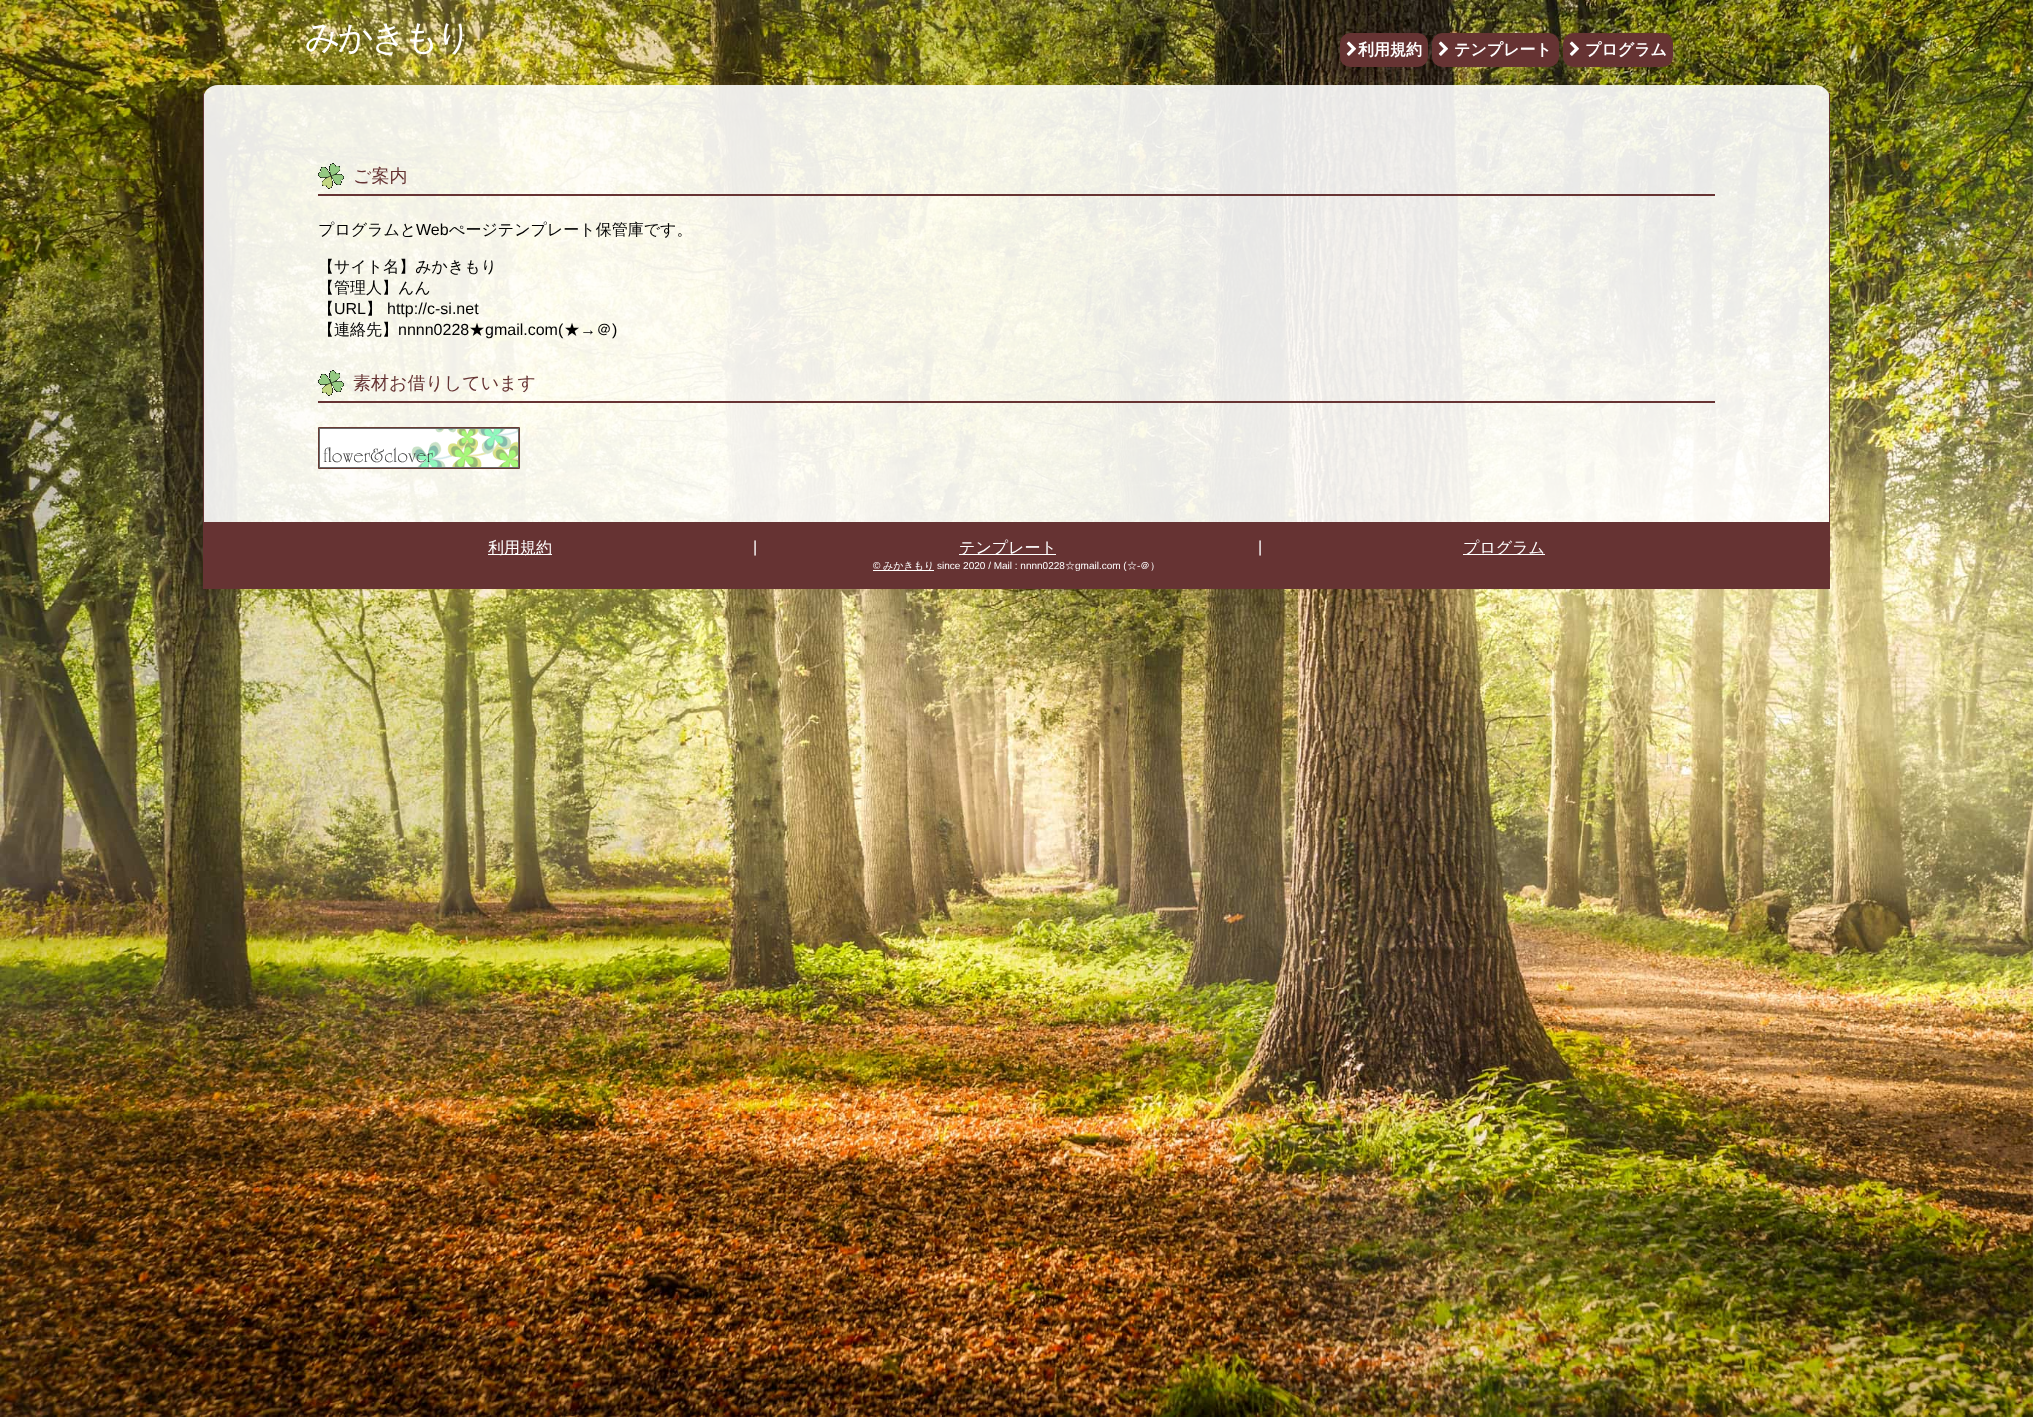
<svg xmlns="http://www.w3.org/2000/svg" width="2033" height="1417">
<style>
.a{font:500 35px WenQuanYi Zen Hei;letter-spacing:-3px;fill:#fff}
.b{font:bold 16px WenQuanYi Zen Hei;fill:#fff}
.c{font:500 18px WenQuanYi Zen Hei;fill:#633}
.d{font:500 16px WenQuanYi Zen Hei;fill:#000}
.e{font:16px Liberation Sans;fill:#000}
.f{font:500 16px WenQuanYi Zen Hei;fill:#fff}
.g{font:16px Liberation Sans;fill:#fff}
.h{font:10px Liberation Sans;fill:#fff}
.i{font:500 10px WenQuanYi Zen Hei;fill:#fff}
</style>
<rect width="100%" height="100%" fill="#fff"/>
<image href="1.png" x="0" y="0" width="2033" height="1417"/>
<rect fill="#633" x="1340" y="33" width="88" height="34" rx="10"/>
<image href="2.png" x="1346" y="41" width="10" height="15"/>
<rect fill="#633" x="1432" y="33" width="127" height="34" rx="10"/>
<image href="2.png" x="1438" y="41" width="10" height="15"/>
<rect fill="#633" x="1563" y="33" width="110" height="34" rx="10"/>
<image href="2.png" x="1569" y="41" width="10" height="15"/>
<path fill="#ffffffe6" d="M218 85h1597c8.5 0 15 6.5 15 15v422h-1627v-422c0-8.5 6.5-15 15-15z"/>
<path fill="#633" d="M1829 93h1v429H1829z"/>
<path fill="#633" d="M203 93h1v429H203z"/>
<image href="3.png" x="318" y="163" width="26" height="26"/>
<path fill="#633" d="M318 194h1397v2H318z"/>
<image href="4.png" x="318" y="370" width="26" height="26"/>
<path fill="#633" d="M318 401h1397v2H318z"/>
<path fill="none" stroke="#693c34" d="M318.5 427.5h201v41H318.5z"/>
<image href="5.png" x="319" y="428" width="200" height="40"/>
<path fill="#633" d="M203 522h1627v67H203z"/>
<path fill="#fff" d="M488 554h64v1H488z"/>
<path fill="#fff" d="M959 554h97v1H959z"/>
<path fill="#fff" d="M1463 554h82v1H1463z"/>
<path fill="#fff" d="M873 570h61v1H873z"/>
<text class="a" x="305" y="49">みかきもり</text>
<text class="b" x="1358" y="55">利用規約</text>
<text class="b" x="1454" y="55">テンプレート</text>
<text class="b" x="1585" y="55">プログラム</text>
<text class="c" x="353" y="182">ご案内</text>
<text class="d" x="318" y="235">プログラムと</text>
<text class="e" x="416" y="235">Web</text>
<text class="d" x="449" y="235">ぺージテンプレート保管庫です。</text>
<text class="d" x="318" y="272">【サイト名】みかきもり</text>
<text class="d" x="318" y="293">【管理人】んん</text>
<text class="d" x="318" y="314">【</text>
<text class="e" x="334" y="314">URL</text>
<text class="d" x="366" y="314">】</text>
<text class="e" x="387" y="314">http://c-si.net</text>
<text class="d" x="318" y="335">【連絡先】</text>
<text class="e" x="398" y="335">nnnn0228</text>
<text class="d" x="469" y="335">★</text>
<text class="e" x="485" y="335">gmail.com(</text>
<text class="d" x="564" y="335">★</text>
<text class="e" x="580" y="335">→</text>
<text class="d" x="596" y="335">＠</text>
<text class="e" x="612" y="335">)</text>
<text class="c" x="353" y="389">素材お借りしています</text>
<text class="f" x="488" y="553">利用規約</text>
<text class="g" x="753" y="552">|</text>
<text class="f" x="959" y="553">テンプレート</text>
<text class="g" x="1258" y="552">|</text>
<text class="f" x="1463" y="553">プログラム</text>
<text class="h" x="873" y="569">©</text>
<text class="i" x="883" y="569">みかきもり</text>
<text class="h" x="937" y="569">since 2020 / Mail : nnnn0228</text>
<text class="i" x="1065" y="569">☆</text>
<text class="h" x="1075" y="569">gmail.com (</text>
<text class="i" x="1127" y="569">☆</text>
<text class="h" x="1137" y="569">-</text>
<text class="i" x="1140" y="569">＠）</text>
</svg>
